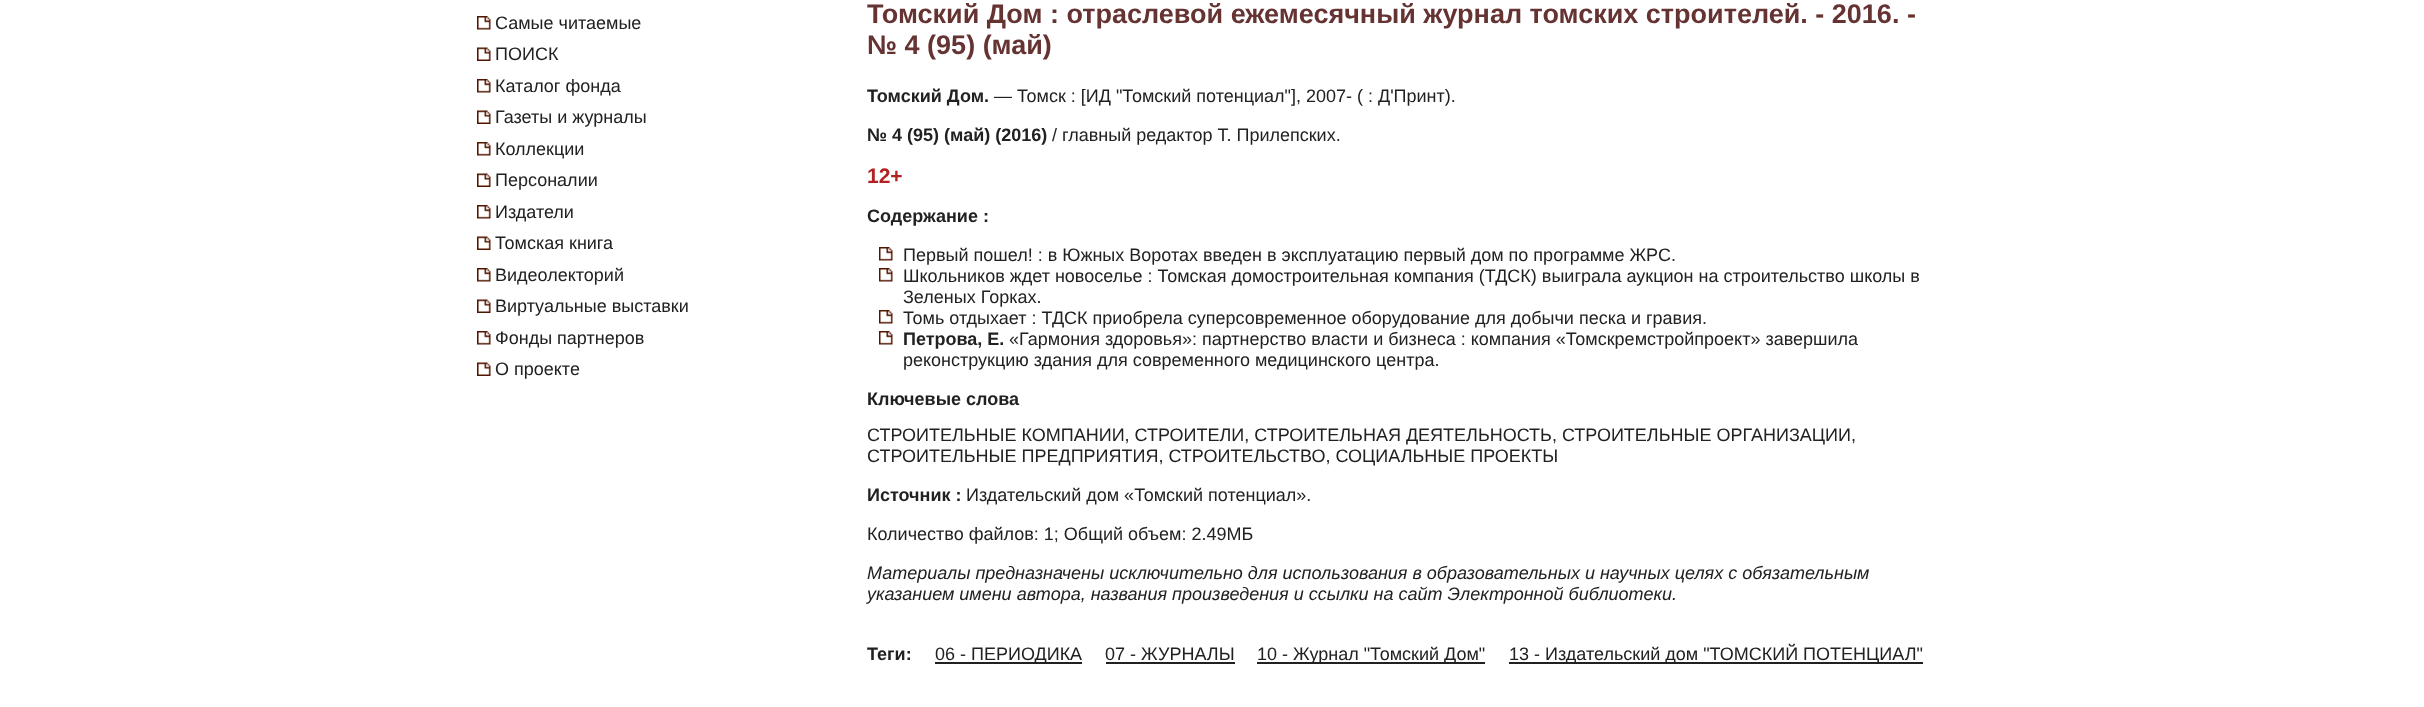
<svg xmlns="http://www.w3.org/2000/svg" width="2424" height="707">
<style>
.a{font:18px Liberation Sans;fill:#212121}
.b{font:bold 27px Liberation Sans;fill:#633}
.c{font:bold 18px Liberation Sans;fill:#212121}
.d{font:bold 21px Liberation Sans;fill:#b22222}
.e{font:italic 18px Liberation Sans;fill:#212121}
</style>
<rect width="100%" height="100%" fill="#fff"/>
<image href="1.png" x="477" y="16" width="14" height="14"/>
<image href="2.png" x="477" y="47" width="14" height="14"/>
<image href="1.png" x="477" y="79" width="14" height="14"/>
<image href="2.png" x="477" y="110" width="14" height="14"/>
<image href="1.png" x="477" y="142" width="14" height="14"/>
<image href="2.png" x="477" y="173" width="14" height="14"/>
<image href="1.png" x="477" y="205" width="14" height="14"/>
<image href="2.png" x="477" y="236" width="14" height="14"/>
<image href="1.png" x="477" y="268" width="14" height="14"/>
<image href="2.png" x="477" y="299" width="14" height="14"/>
<image href="1.png" x="477" y="331" width="14" height="14"/>
<image href="2.png" x="477" y="362" width="14" height="14"/>
<image href="3.png" x="879" y="247" width="14" height="14"/>
<image href="3.png" x="879" y="268" width="14" height="14"/>
<image href="3.png" x="879" y="310" width="14" height="14"/>
<image href="3.png" x="879" y="331" width="14" height="14"/>
<path fill="#212121" d="M935 662h147v2H935z"/>
<path fill="#212121" d="M1106 662h129v2H1106z"/>
<path fill="#212121" d="M1257 662h228v2H1257z"/>
<path fill="#212121" d="M1509 662h414v2H1509z"/>
<text class="a" x="495" y="29">Самые читаемые</text>
<text class="a" x="495" y="60">ПОИСК</text>
<text class="a" x="495" y="92">Каталог фонда</text>
<text class="a" x="495" y="123">Газеты и журналы</text>
<text class="a" x="495" y="155">Коллекции</text>
<text class="a" x="495" y="186">Персоналии</text>
<text class="a" x="495" y="218">Издатели</text>
<text class="a" x="495" y="249">Томская книга</text>
<text class="a" x="495" y="281">Видеолекторий</text>
<text class="a" x="495" y="312">Виртуальные выставки</text>
<text class="a" x="495" y="344">Фонды партнеров</text>
<text class="a" x="495" y="375">О проекте</text>
<text class="b" x="867" y="23">Томский Дом : отраслевой ежемесячный журнал томских строителей. - 2016. -</text>
<text class="b" x="867" y="54">№ 4 (95) (май)</text>
<text class="c" x="867" y="102">Томский Дом.</text>
<text class="a" x="994" y="102">— Томск : [ИД "Томский потенциал"], 2007- ( : Д'Принт).</text>
<text class="c" x="867" y="141">№ 4 (95) (май) (2016)</text>
<text class="a" x="1052" y="141">/ главный редактор Т. Прилепских.</text>
<text class="d" x="867" y="183">12+</text>
<text class="c" x="867" y="222">Содержание :</text>
<text class="a" x="903" y="261">Первый пошел! : в Южных Воротах введен в эксплуатацию первый дом по программе ЖРС.</text>
<text class="a" x="903" y="282">Школьников ждет новоселье : Томская домостроительная компания (ТДСК) выиграла аукцион на строительство школы в</text>
<text class="a" x="903" y="303">Зеленых Горках.</text>
<text class="a" x="903" y="324">Томь отдыхает : ТДСК приобрела суперсовременное оборудование для добычи песка и гравия.</text>
<text class="c" x="903" y="345">Петрова, Е.</text>
<text class="a" x="1009" y="345">«Гармония здоровья»: партнерство власти и бизнеса : компания «Томскремстройпроект» завершила</text>
<text class="a" x="903" y="366">реконструкцию здания для современного медицинского центра.</text>
<text class="c" x="867" y="405">Ключевые слова</text>
<text class="a" x="867" y="441">СТРОИТЕЛЬНЫЕ КОМПАНИИ, СТРОИТЕЛИ, СТРОИТЕЛЬНАЯ ДЕЯТЕЛЬНОСТЬ, СТРОИТЕЛЬНЫЕ ОРГАНИЗАЦИИ,</text>
<text class="a" x="867" y="462">СТРОИТЕЛЬНЫЕ ПРЕДПРИЯТИЯ, СТРОИТЕЛЬСТВО, СОЦИАЛЬНЫЕ ПРОЕКТЫ</text>
<text class="c" x="867" y="501">Источник :</text>
<text class="a" x="966" y="501">Издательский дом «Томский потенциал».</text>
<text class="a" x="867" y="540">Количество файлов: 1; Общий объем: 2.49МБ</text>
<text class="e" x="867" y="579">Материалы предназначены исключительно для использования в образовательных и научных целях с обязательным</text>
<text class="e" x="867" y="600">указанием имени автора, названия произведения и ссылки на сайт Электронной библиотеки.</text>
<text class="c" x="867" y="660">Теги:</text>
<text class="a" x="935" y="660">06 - ПЕРИОДИКА</text>
<text class="a" x="1105" y="660">07 - ЖУРНАЛЫ</text>
<text class="a" x="1257" y="660">10 - Журнал "Томский Дом"</text>
<text class="a" x="1509" y="660">13 - Издательский дом "ТОМСКИЙ ПОТЕНЦИАЛ"</text>
</svg>
